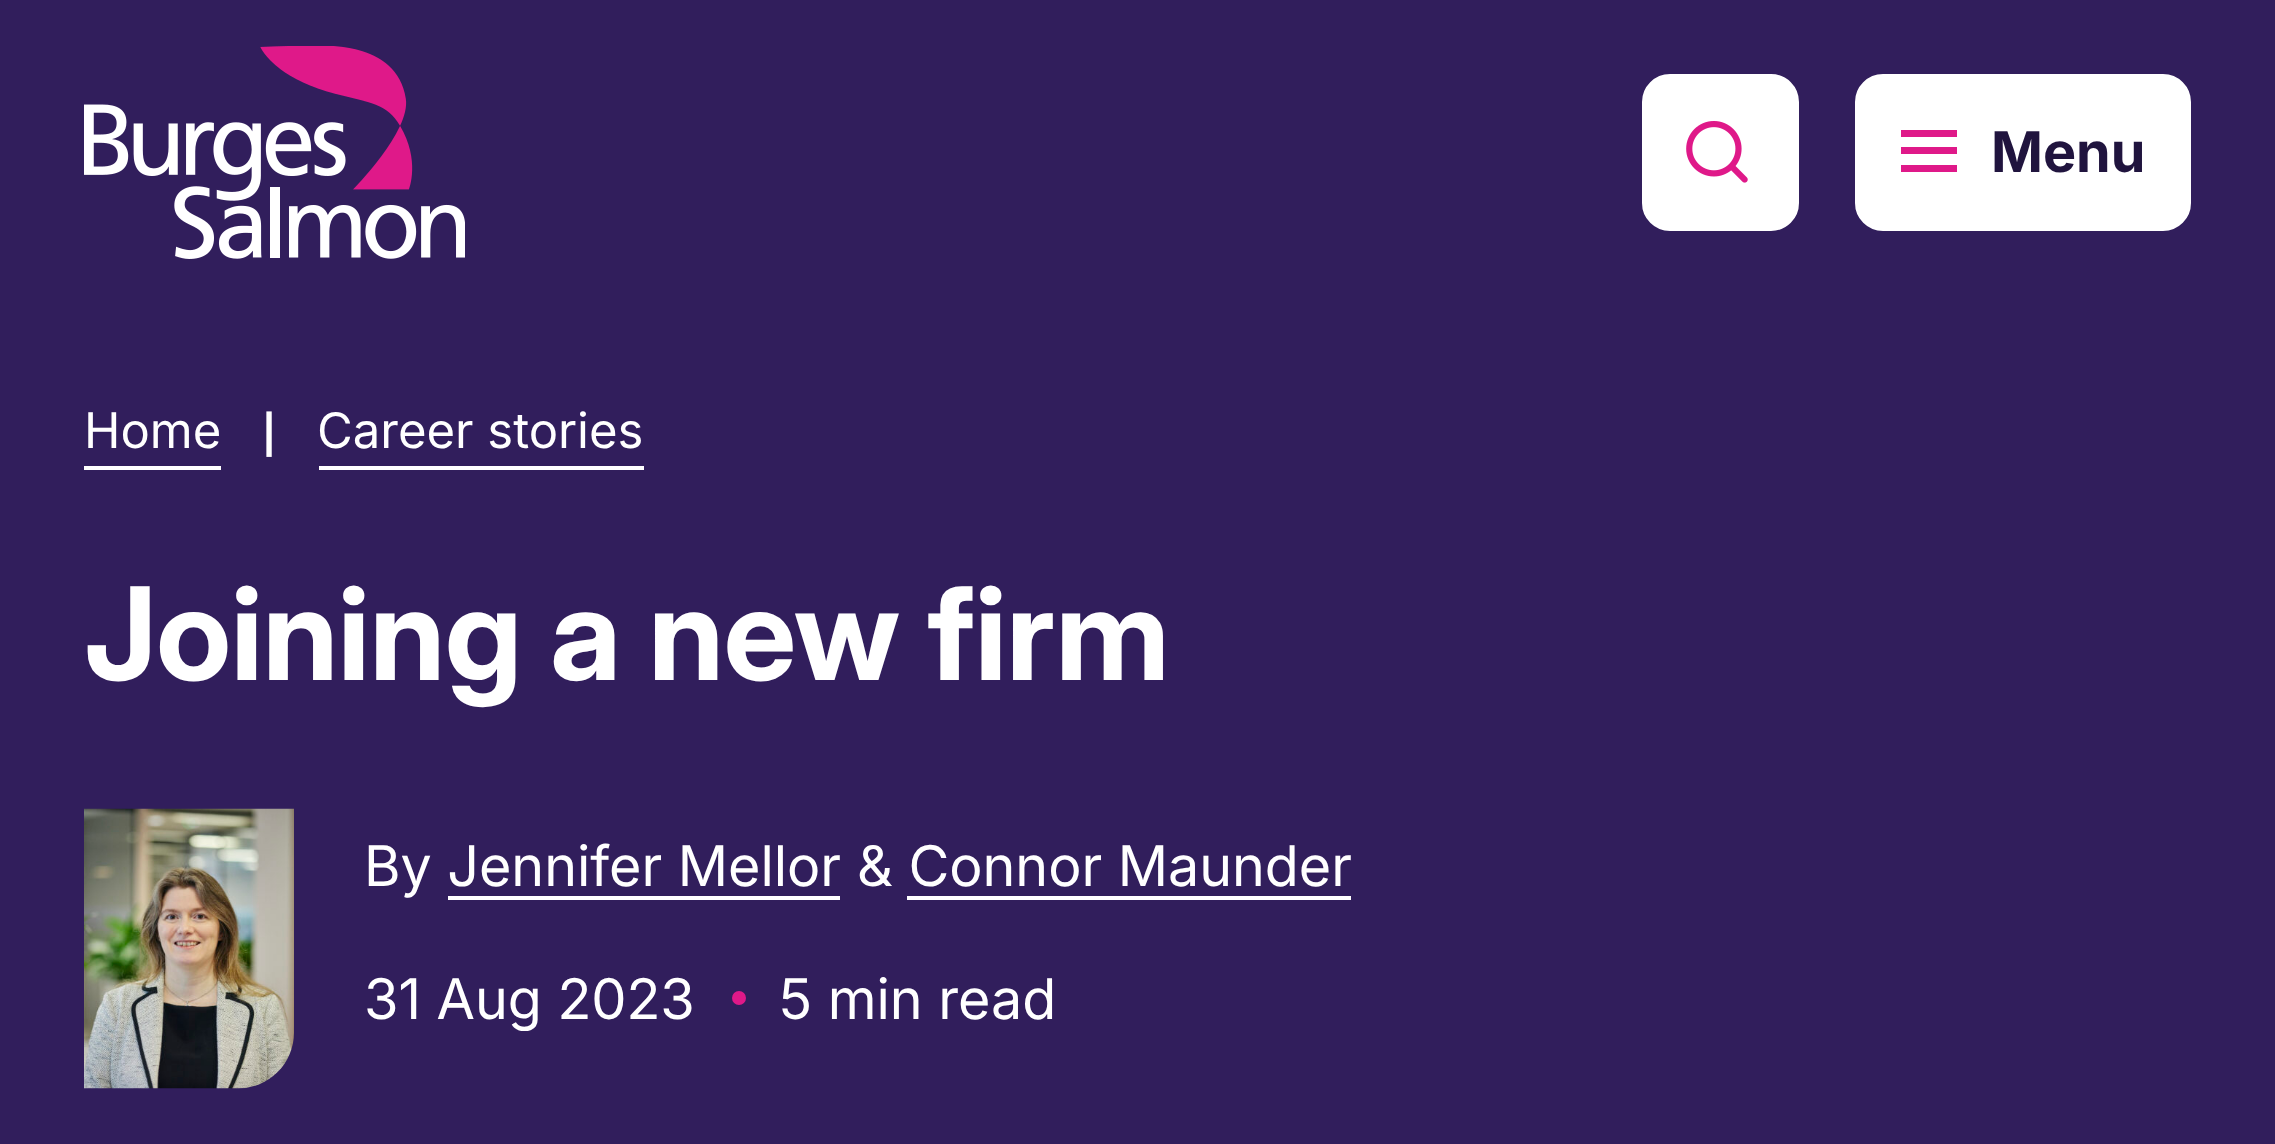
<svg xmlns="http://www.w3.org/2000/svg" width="2275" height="1144">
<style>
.a{font:bold 56px 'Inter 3';fill:#20143e}
.b{font:49px Inter;fill:#fff}
.c{font:bold 38px Inter;fill:#fff}
.d{font:bold 128.75px 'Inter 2';fill:#fff}
.e{font:56px 'Inter 2';fill:#fff}
</style>
<rect width="100%" height="100%" fill="#311e5c"/>
<image href="1.png" x="84" y="46" width="381" height="213"/>
<rect fill="#fff" stroke="#fff" stroke-width="4" x="1644" y="76" width="153" height="153" rx="26"/>
<image href="2.png" x="1686" y="121" width="62" height="62"/>
<rect fill="#fff" stroke="#fff" stroke-width="4" x="1857" y="76" width="332" height="153" rx="26"/>
<path fill="#df1989" d="M1901 147h56v7H1901z"/>
<path fill="#df1989" d="M1901 130h56v7H1901z"/>
<path fill="#df1989" d="M1901 165h56v7H1901z"/>
<path fill="#fff" d="M84 466h137v4H84z"/>
<path fill="#fff" d="M319 466h325v4H319z"/>
<image href="3.png" x="84" y="808" width="210" height="281"/>
<path fill="#fff" d="M907 896h444v4H907z"/>
<path fill="#fff" d="M448 896h392v4H448z"/>
<circle fill="#df1989" cx="739" cy="998" r="7"/>
<text class="a" x="1991" y="172">Menu</text>
<text class="b" x="84" y="448">Home</text>
<text class="c" x="262" y="448">|</text>
<text class="b" x="317" y="448">Career stories</text>
<text class="d" x="84" y="680">Joining a new firm</text>
<text class="e" x="364" y="886">By Jennifer Mellor</text>
<text class="e" x="857" y="886">&amp; Connor Maunder</text>
<text class="e" x="364" y="1019">31 Aug 2023</text>
<text class="e" x="779" y="1019">5 min read</text>
</svg>
